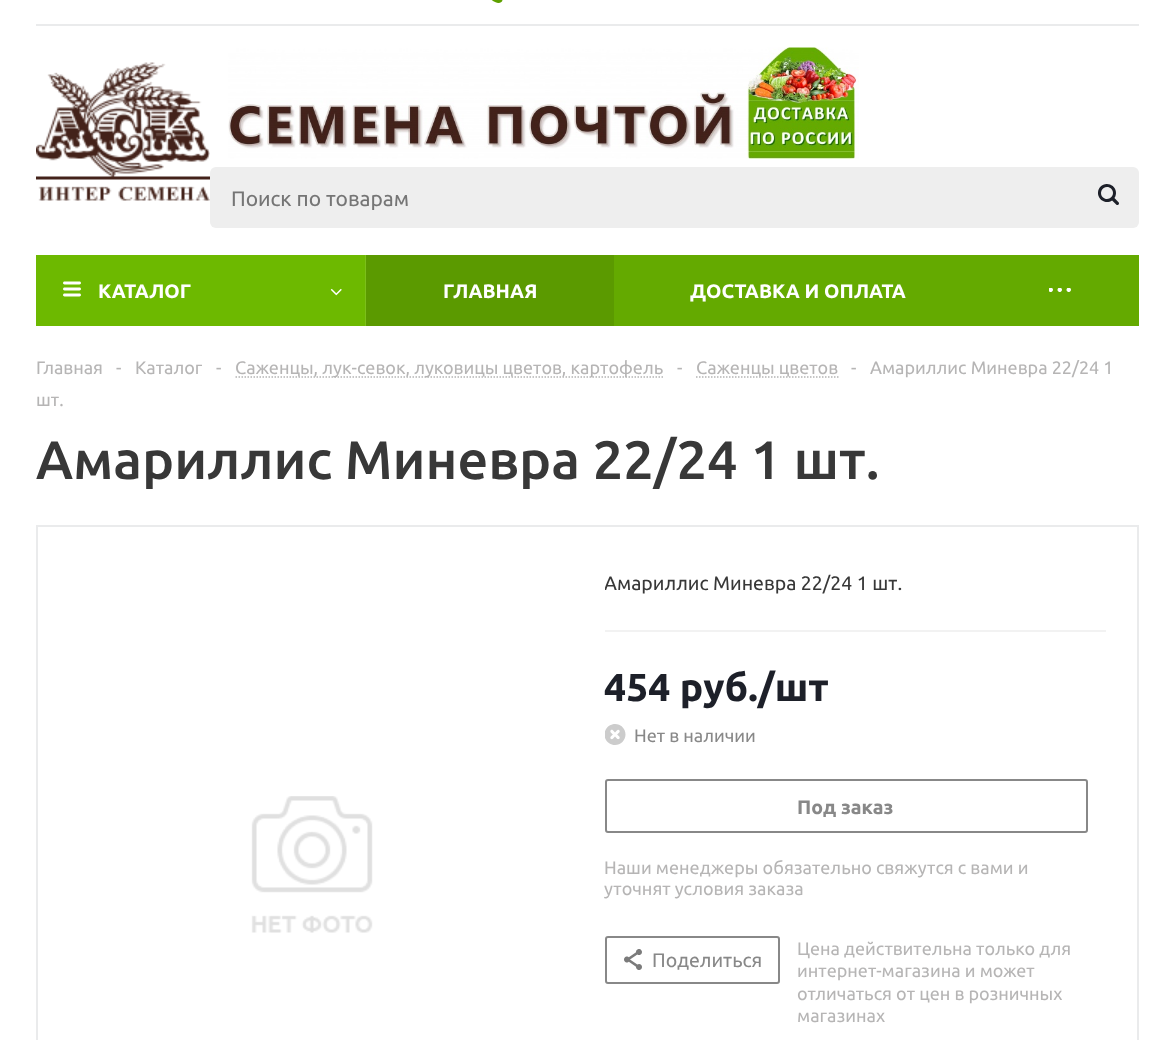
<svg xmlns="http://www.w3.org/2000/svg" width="1174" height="1040">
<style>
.a{font:21px Ubuntu;fill:#757575}
.b{font:bold 19.5px Ubuntu;fill:#fff}
.c{font:18px Ubuntu;fill:#b6b5b5}
.d{font:500 54px Ubuntu;fill:#383838}
.e{font:19.5px Ubuntu;fill:#383838}
.f{font:bold 39px Ubuntu;fill:#1d2029}
.g{font:18px Ubuntu;fill:#888}
.h{font:bold 19.5px Ubuntu;fill:#888}
.i{font:19.5px Ubuntu;fill:#888}
</style>
<defs>
<clipPath id="clip1"><path d="M605 548h501v54H605z"/></clipPath>
</defs>
<rect width="100%" height="100%" fill="#fff"/>
<image href="1.png" x="491" y="0" width="12" height="3"/>
<path fill="#eaebec" d="M36 24h1103v2H36z"/>
<image href="2.png" x="36" y="62" width="174" height="139"/>
<image href="3.png" x="228" y="47" width="631" height="112"/>
<rect fill="#eee" x="210" y="167" width="929" height="61" rx="6"/>
<image href="4.png" x="1098" y="184" width="21" height="21"/>
<path fill="#64aa00" d="M614 255h525v71H614z"/>
<path fill="#6db900" d="M36 255h329v71H36z"/>
<path fill="#7cc01a" d="M365 255h1v71H365z"/>
<image href="5.png" x="63" y="281" width="18" height="16"/>
<image href="6.png" x="330" y="288" width="12" height="8"/>
<path fill="#5b9a00" d="M366 255h248v71H366z"/>
<image href="7.png" x="1049" y="288" width="22" height="4"/>
<path fill="none" stroke="#b4b4b4" stroke-width="1.5" stroke-dasharray="1.5 1.5" d="M235.5 377h427.5"/>
<path fill="none" stroke="#b4b4b4" stroke-width="1.5" stroke-dasharray="1.5 1.5" d="M696 377h142.5"/>
<path fill="none" stroke="#eaebec" stroke-width="2" d="M37 526h1101v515H37z"/>
<image href="8.png" x="251" y="796" width="122" height="137"/>
<path fill="#f2f2f2" d="M605 630h501v2H605z"/>
<image href="9.png" x="605" y="724" width="21" height="21"/>
<rect fill="none" stroke="#888" stroke-width="2" x="606" y="780" width="481" height="52" rx="2"/>
<rect fill="none" stroke="#888" stroke-width="2" x="606" y="937" width="173" height="46" rx="2"/>
<image href="10.png" x="624" y="949" width="18" height="21"/>
<text class="a" x="231" y="206">Поиск по товарам</text>
<text class="b" x="98" y="298">КАТАЛОГ</text>
<text class="b" x="443" y="298">ГЛАВНАЯ</text>
<text class="b" x="690" y="298">ДОСТАВКА И ОПЛАТА</text>
<text class="c" x="36" y="374">Главная</text>
<text class="c" x="116" y="374">-</text>
<text class="c" x="135" y="374">Каталог</text>
<text class="c" x="216" y="374">-</text>
<text class="c" x="235" y="374">Саженцы, лук-севок, луковицы цветов, картофель</text>
<text class="c" x="677" y="374">-</text>
<text class="c" x="696" y="374">Саженцы цветов</text>
<text class="c" x="851" y="374">-</text>
<text class="c" x="870" y="374">Амариллис Миневра 22/24 1</text>
<text class="c" x="36" y="406">шт.</text>
<text class="d" x="36" y="479">Амариллис Миневра 22/24 1 шт.</text>
<g clip-path="url(#clip1)">
<text class="e" x="604" y="590">Амариллис Миневра 22/24 1 шт.</text>
</g>
<text class="f" x="604" y="701">454 руб./шт</text>
<text class="g" x="634" y="742">Нет в наличии</text>
<text class="h" x="797" y="814">Под заказ</text>
<text class="c" x="604" y="874">Наши менеджеры обязательно свяжутся с вами и</text>
<text class="c" x="604" y="895">уточнят условия заказа</text>
<text class="i" x="652" y="967">Поделиться</text>
<text class="c" x="797" y="955">Цена действительна только для</text>
<text class="c" x="797" y="977">интернет-магазина и может</text>
<text class="c" x="797" y="1000">отличаться от цен в розничных</text>
<text class="c" x="797" y="1022">магазинах</text>
</svg>
